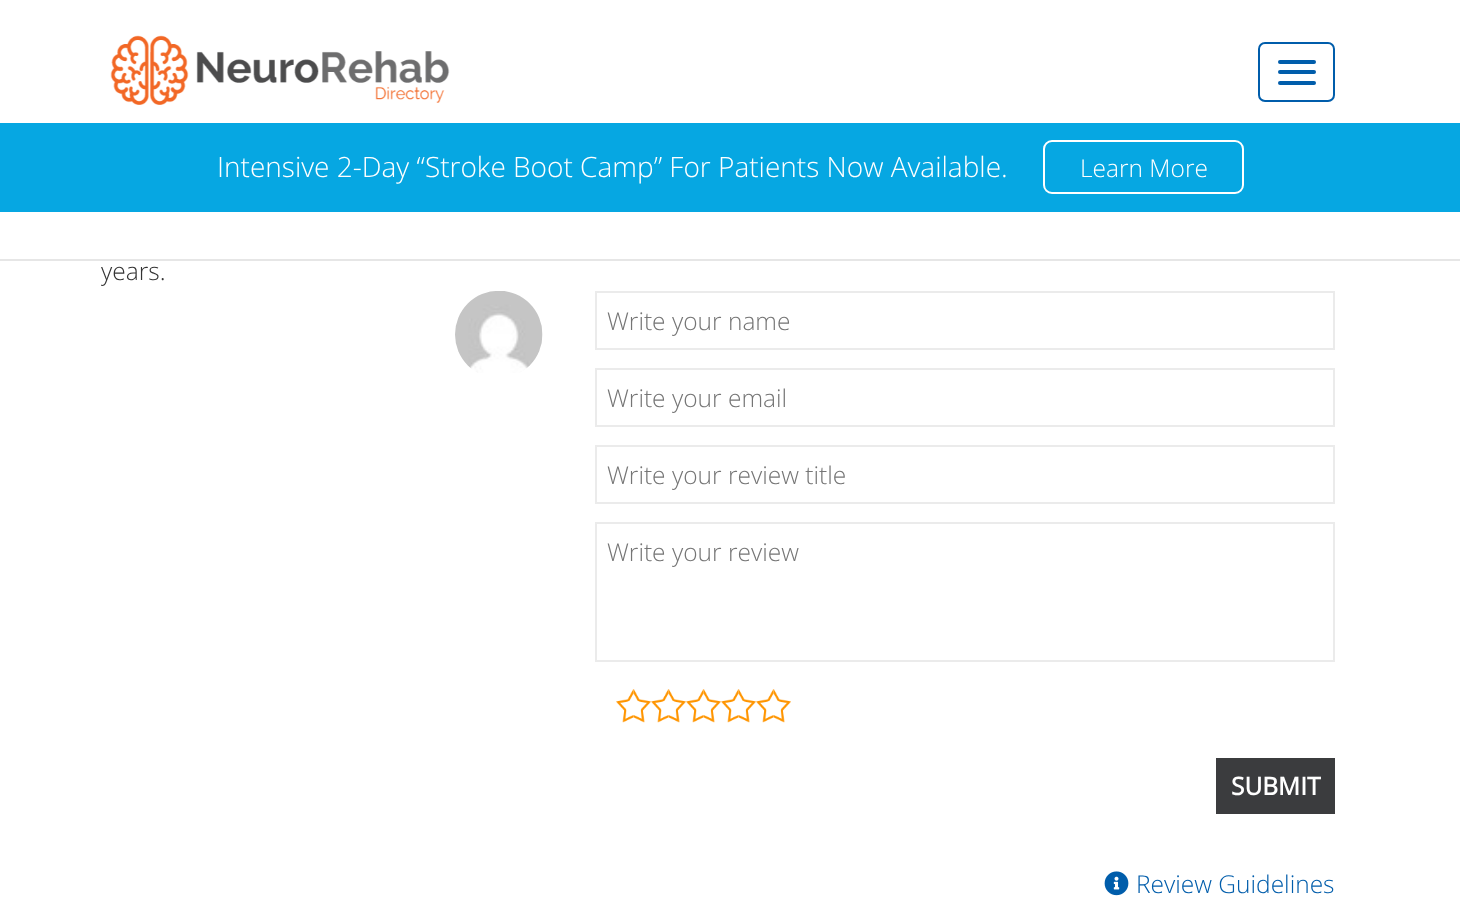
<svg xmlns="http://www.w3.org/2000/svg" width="1460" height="915">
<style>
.a{font:300 28px Open Sans;fill:#fff}
.b{font:300 24.5px Open Sans;fill:#fff}
.c{font:300 24.5px Open Sans;fill:#333}
.d{font:300 24.5px Open Sans;fill:#757575}
.e{font:bold 24.5px Open Sans;fill:#fff}
.f{font:300 24.5px Open Sans;fill:#005dab}
</style>
<rect width="100%" height="100%" fill="#fff"/>
<path fill="#e6e6e6" d="M0 259h1460v2H0z"/>
<image href="1.png" x="110" y="35" width="340" height="70"/>
<rect fill="none" stroke="#005dab" stroke-width="2" x="1259" y="43" width="75" height="58" rx="6"/>
<rect fill="#005dab" x="1278" y="60" width="38" height="4" rx="2"/>
<rect fill="#005dab" x="1278" y="70" width="38" height="4" rx="2"/>
<rect fill="#005dab" x="1278" y="81" width="38" height="4" rx="2"/>
<path fill="#06a7e2" d="M0 123h1460v89H0z"/>
<rect fill="none" stroke="#fff" stroke-width="2" x="1044" y="141" width="199" height="52" rx="8"/>
<image href="2.png" x="455" y="291" width="88" height="82"/>
<path fill="none" stroke="#ebebeb" stroke-width="2" d="M596 292h738v57H596z"/>
<path fill="none" stroke="#ebebeb" stroke-width="2" d="M596 369h738v57H596z"/>
<path fill="none" stroke="#ebebeb" stroke-width="2" d="M596 446h738v57H596z"/>
<path fill="none" stroke="#ebebeb" stroke-width="2" d="M596 523h738v138H596z"/>
<image href="4.png" x="633" y="689" width="18" height="34"/>
<image href="3.png" x="616" y="689" width="18" height="34"/>
<image href="4.png" x="668" y="689" width="18" height="34"/>
<image href="3.png" x="651" y="689" width="18" height="34"/>
<image href="4.png" x="703" y="689" width="18" height="34"/>
<image href="3.png" x="686" y="689" width="18" height="34"/>
<image href="4.png" x="738" y="689" width="18" height="34"/>
<image href="3.png" x="721" y="689" width="18" height="34"/>
<image href="4.png" x="773" y="689" width="18" height="34"/>
<image href="3.png" x="756" y="689" width="18" height="34"/>
<path fill="#3b3c3e" d="M1216 758h119v56H1216z"/>
<image href="5.png" x="1104" y="871" width="25" height="25"/>
<text class="a" x="217" y="177">Intensive 2-Day “Stroke Boot Camp” For Patients Now Available.</text>
<text class="b" x="1080" y="177">Learn More</text>
<text class="c" x="101" y="280">years.</text>
<text class="d" x="607" y="330">Write your name</text>
<text class="d" x="607" y="407">Write your email</text>
<text class="d" x="607" y="484">Write your review title</text>
<text class="d" x="607" y="561">Write your review</text>
<text class="e" x="1231" y="795">SUBMIT</text>
<text class="f" x="1136" y="893">Review Guidelines</text>
</svg>
